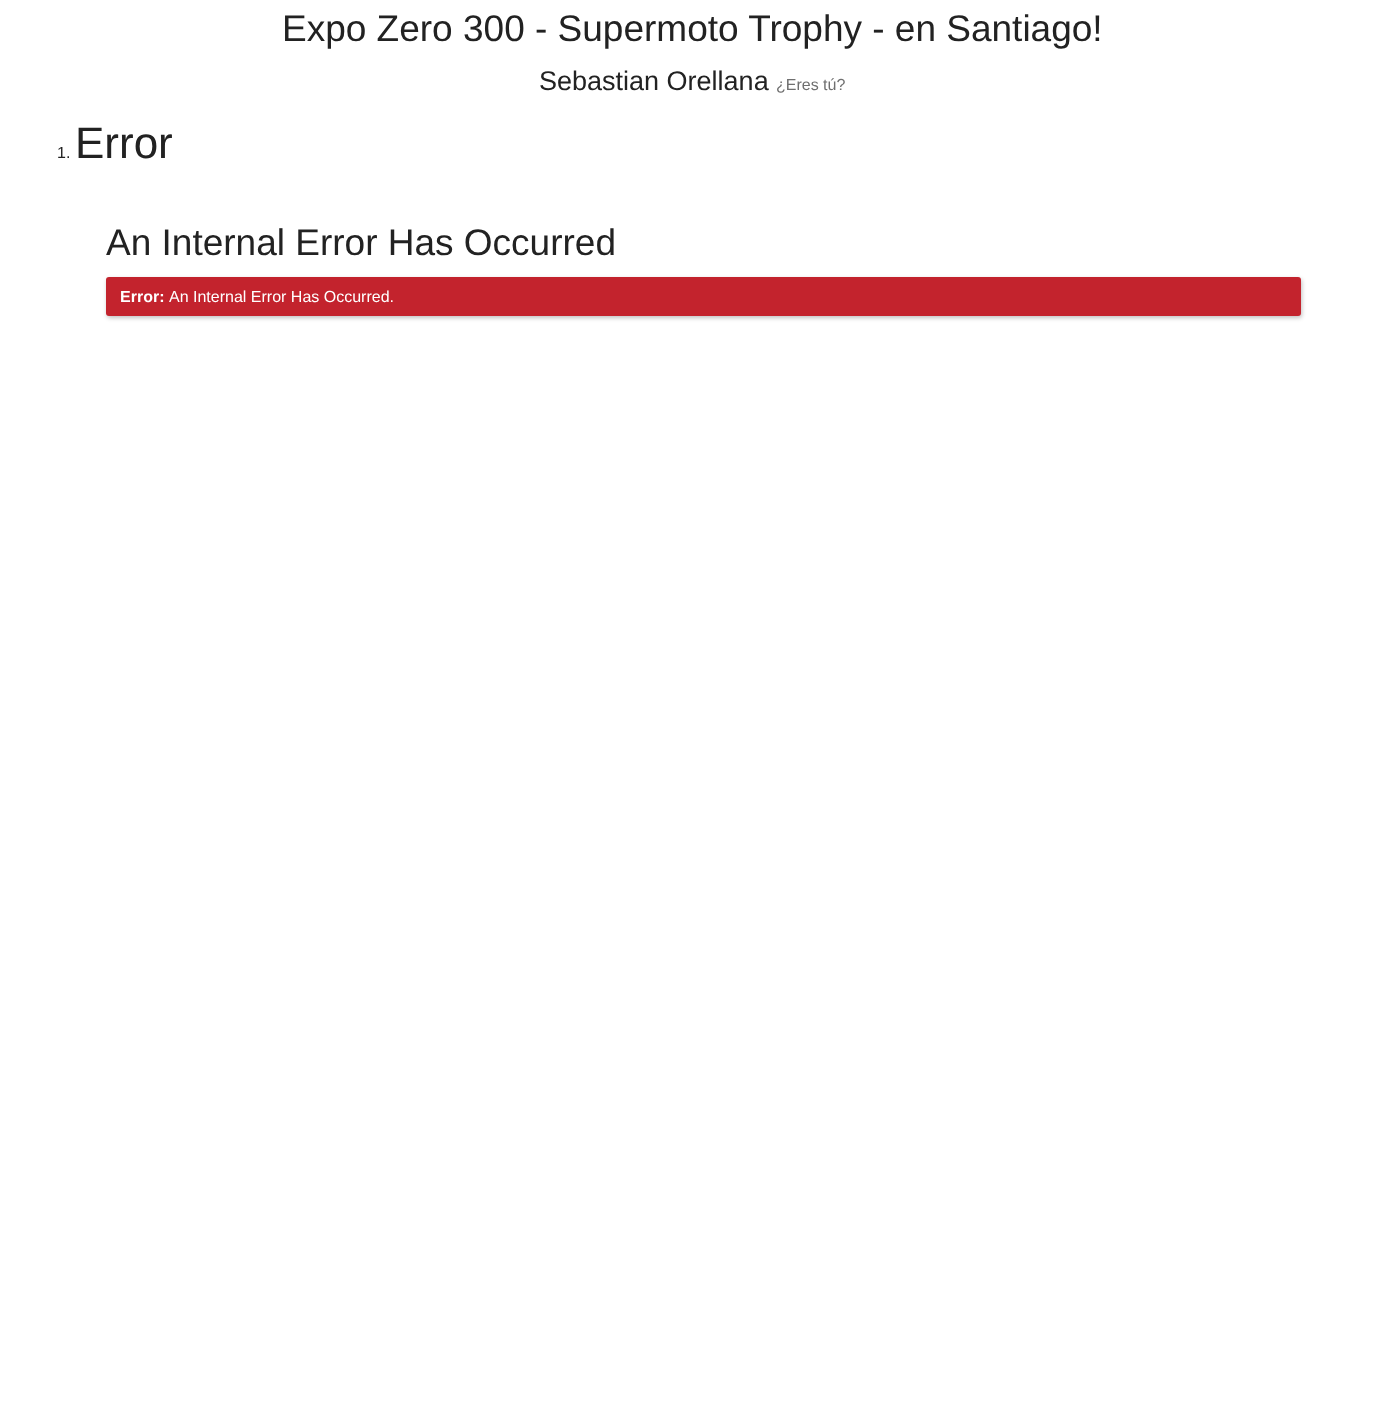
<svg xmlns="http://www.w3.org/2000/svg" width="1385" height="1409">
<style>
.a{font:37px Liberation Sans;fill:#222}
.b{font:27px Liberation Sans;fill:#222}
.c{font:16px Liberation Sans;fill:#6f6f6f}
.d{font:16px Liberation Sans;fill:#222}
.e{font:44px Liberation Sans;fill:#222}
.f{font:bold 16px Liberation Sans;fill:#fff}
.g{font:16px Liberation Sans;fill:#fff}
</style>
<rect width="100%" height="100%" fill="#fff"/>
<rect fill="#0000003d" filter="blur(2px)" x="107" y="279" width="1195" height="39" rx="3"/>
<rect fill="#c3232d" x="106" y="277" width="1195" height="39" rx="3"/>
<text class="a" x="282" y="41">Expo Zero 300 - Supermoto Trophy - en Santiago!</text>
<text class="b" x="539" y="90">Sebastian Orellana</text>
<text class="c" x="776" y="90">¿Eres tú?</text>
<text class="d" x="57" y="158">1.</text>
<text class="e" x="75" y="158">Error</text>
<text class="a" x="106" y="255">An Internal Error Has Occurred</text>
<text class="f" x="120" y="302">Error:</text>
<text class="g" x="169" y="302">An Internal Error Has Occurred.</text>
</svg>
